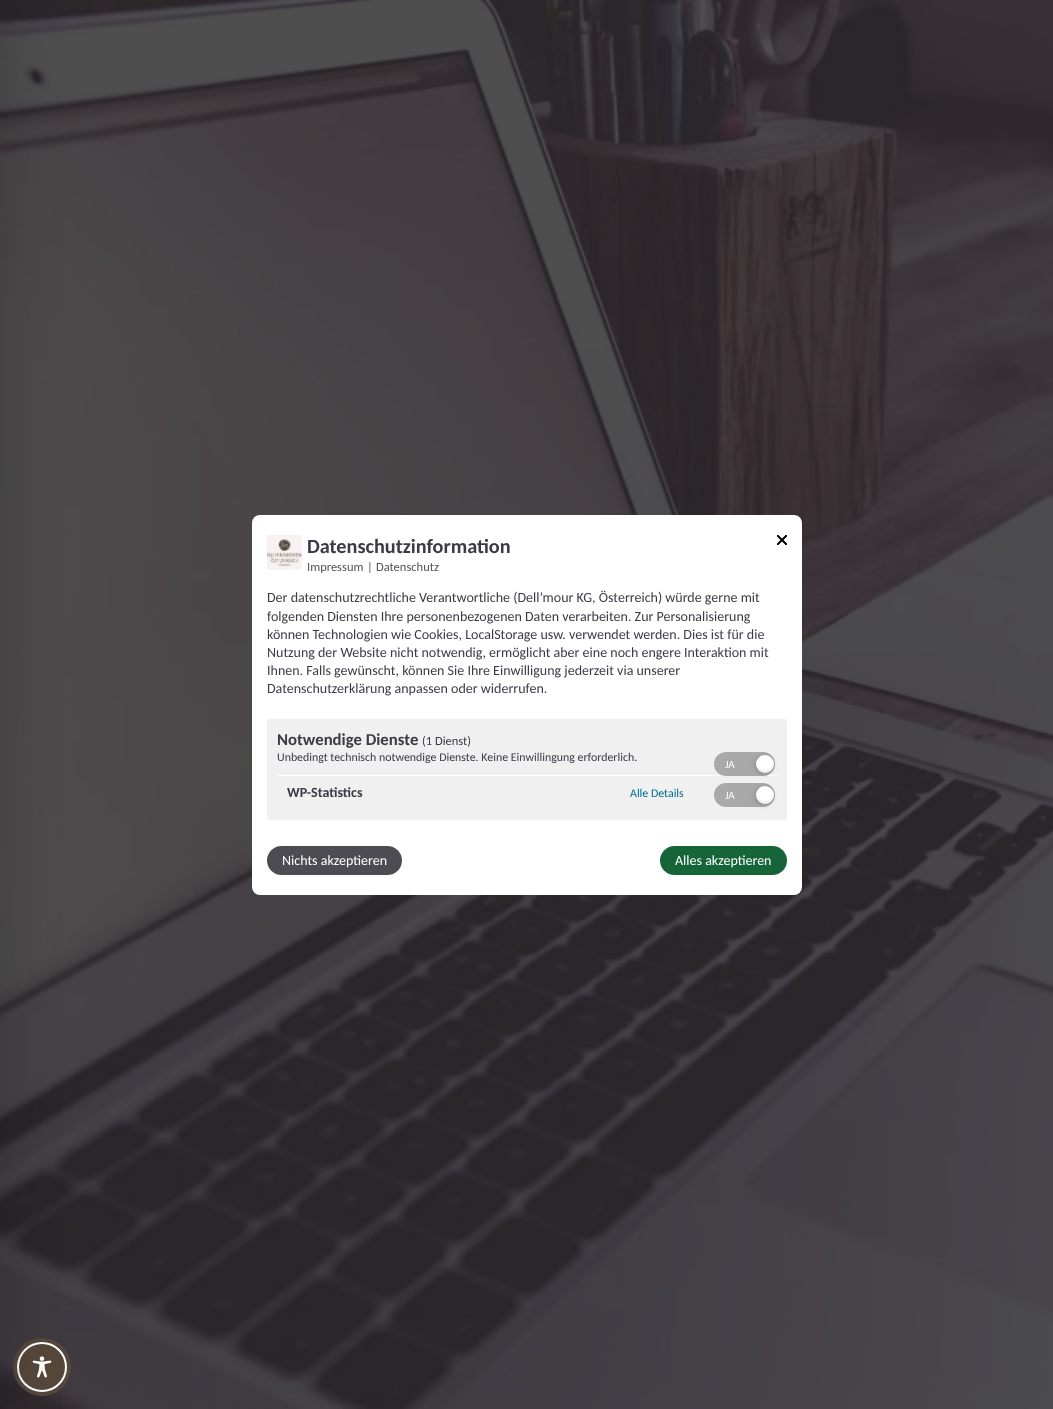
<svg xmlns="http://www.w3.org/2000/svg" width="1053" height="1409">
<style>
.a{font:bold 20.25px Carlito;fill:#3b3b45}
.b{font:12.5px Carlito;fill:#555}
.c{font:14px Carlito;fill:#3b3b45}
.d{font:bold 16.75px Carlito;fill:#3b3b45}
.e{font:12.5px Carlito;fill:#3b3b45}
.f{font:11.9px Carlito;fill:#3b3b45}
.g{font:11px Carlito;fill:#fff}
.h{font:bold 14px Carlito;fill:#3b3b45}
.i{font:11.9px Carlito;fill:#006d91}
.j{font:14px Carlito;fill:#fff}
</style>
<defs>
<clipPath id="clip1"><path d="M777 535h10v10H777z"/></clipPath>
<linearGradient id="g1" gradientUnits="userSpaceOnUse" x1="765" y1="755" x2="765" y2="773"><stop offset="0.4" stop-color="#fff"/><stop offset="1" stop-color="#f0f0f0"/></linearGradient>
<linearGradient id="g2" gradientUnits="userSpaceOnUse" x1="765" y1="786" x2="765" y2="804"><stop offset="0.4" stop-color="#fff"/><stop offset="1" stop-color="#f0f0f0"/></linearGradient>
</defs>
<rect width="100%" height="100%" fill="#fff"/>
<image href="1.png" x="0" y="0" width="1053" height="1409"/>
<circle fill="none" stroke="#56473b" stroke-width="4" cx="42" cy="1367" r="27"/>
<circle fill="#56473b" stroke="#fff" stroke-width="2" cx="42" cy="1367" r="24"/>
<image href="3.png" x="32" y="1356" width="20" height="22"/>
<path fill="#00000033" filter="blur(30px)" d="M-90 10h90v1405H-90z"/>
<rect fill="#fff" x="252" y="515" width="550" height="380" rx="8"/>
<image href="2.png" x="267" y="535" width="35" height="35"/>
<g clip-path="url(#clip1)">
<path fill="none" stroke="#000" stroke-width="2" d="M777 535l10 10m-10 0l10-10"/>
</g>
<rect fill="#f0f0f0" x="267" y="719" width="520" height="101" rx="3"/>
<path fill="#fff" d="M277 775h500v1H277z"/>
<rect fill="#a9a9a9" x="714" y="752" width="61" height="24" rx="12"/>
<rect fill="#00000033" filter="blur(2.5px)" x="755" y="756" width="18" height="18" rx="9"/>
<circle fill="url(#g1)" cx="765" cy="764" r="9"/>
<circle fill="#fff" cx="765" cy="764" r="6"/>
<path fill="#fafafa" d="M765 759c4 0 6 2.5 6 5.5c.5-8.5-12.5-8.5-12 0c0-3 2-5.5 6-5.5z"/>
<rect fill="#a9a9a9" x="714" y="783" width="61" height="24" rx="12"/>
<rect fill="#00000033" filter="blur(2.5px)" x="755" y="787" width="18" height="18" rx="9"/>
<circle fill="url(#g2)" cx="765" cy="795" r="9"/>
<circle fill="#fff" cx="765" cy="795" r="6"/>
<path fill="#fafafa" d="M765 790c4 0 6 2.5 6 5.5c.5-8.5-12.5-8.5-12 0c0-3 2-5.5 6-5.5z"/>
<rect fill="#4d4c53" x="267" y="846" width="135" height="29" rx="14.5"/>
<rect fill="#156539" x="660" y="846" width="127" height="29" rx="14.5"/>
<text class="a" x="307" y="553">Datenschutzinformation</text>
<text class="b" x="307" y="571">Impressum</text>
<text class="b" x="367" y="571">|</text>
<text class="b" x="376" y="571">Datenschutz</text>
<text class="c" x="267" y="602">Der datenschutzrechtliche Verantwortliche (Dell’mour KG, Österreich) würde gerne mit</text>
<text class="c" x="267" y="621">folgenden Diensten Ihre personenbezogenen Daten verarbeiten. Zur Personalisierung</text>
<text class="c" x="267" y="639">können Technologien wie Cookies, LocalStorage usw. verwendet werden. Dies ist für die</text>
<text class="c" x="267" y="657">Nutzung der Website nicht notwendig, ermöglicht aber eine noch engere Interaktion mit</text>
<text class="c" x="267" y="675">Ihnen. Falls gewünscht, können Sie Ihre Einwilligung jederzeit via unserer</text>
<text class="c" x="267" y="693">Datenschutzerklärung anpassen oder widerrufen.</text>
<text class="d" x="277" y="745">Notwendige Dienste</text>
<text class="e" x="422" y="745">(1 Dienst)</text>
<text class="f" x="277" y="761">Unbedingt technisch notwendige Dienste. Keine Einwillingung erforderlich.</text>
<text class="g" x="725" y="768">JA</text>
<text class="h" x="287" y="797">WP-Statistics</text>
<text class="i" x="630" y="797">Alle Details</text>
<text class="g" x="725" y="799">JA</text>
<text class="j" x="282" y="865">Nichts akzeptieren</text>
<text class="j" x="675" y="865">Alles akzeptieren</text>
</svg>
